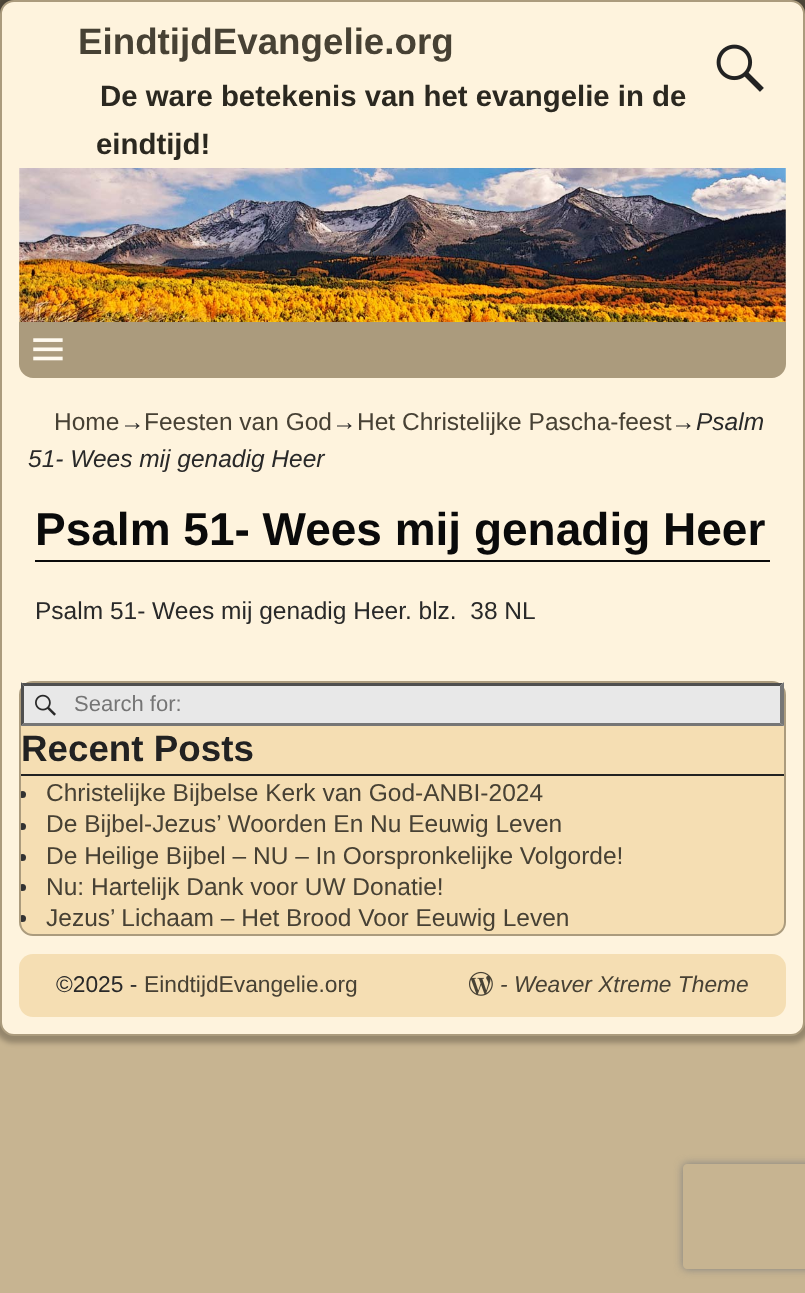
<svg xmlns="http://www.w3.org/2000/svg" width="805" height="1293">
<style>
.a{font:bold 36.75px Liberation Sans;fill:#474134}
.b{font:bold 29.4px Liberation Sans;fill:#2b2820}
.c{font:24.5px Liberation Sans;fill:#474134}
.d{font:24.5px Liberation Sans;fill:#292929}
.e{font:italic 24.5px Liberation Sans;fill:#292929}
.f{font:bold 46px Liberation Sans;fill:#0a0a0a}
.g{font:22px Liberation Sans;fill:#757575}
.h{font:bold 36.75px Liberation Sans;fill:#222}
.i{font:22.75px Liberation Sans;fill:#292929}
.j{font:22.75px Liberation Sans;fill:#474134}
.k{font:italic 22.75px Liberation Sans;fill:#474134}
</style>
<defs>
<clipPath id="clip1"><path d="M21 683h763v43H21z"/></clipPath>
<clipPath id="clip2"><path d="M21 726h763v209H21z"/></clipPath>
<clipPath id="clip3"><path d="M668 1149h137v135h-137zm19 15h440c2 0 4 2 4 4v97c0 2-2 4-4 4h-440c-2 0-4-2-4-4v-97c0-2 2-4 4-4z" clip-rule="evenodd"/></clipPath>
</defs>
<rect width="100%" height="100%" fill="#c7b491"/>
<image href="1.png" x="0" y="0" width="805" height="14"/>
<rect fill="#00000040" filter="blur(2.5px)" x="-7" y="-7" width="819" height="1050" rx="21"/>
<rect fill="#fef3dd" stroke="#ab9b7d" stroke-width="2" x="1" y="1" width="803" height="1034" rx="13"/>
<image href="2.png" x="716" y="44" width="48" height="48"/>
<image href="3.png" x="19" y="168" width="767" height="154"/>
<path fill="#ab9b7d" d="M19 322h767v42c0 7.5-6.5 14-14 14h-739c-7.5 0-14-6.5-14-14z"/>
<image href="4.png" x="33" y="338" width="30" height="23"/>
<path fill="#0a0a0a" d="M35 560h735v2H35z"/>
<rect fill="#f5deb3" stroke="#ab9b7d" stroke-width="2" x="20" y="682" width="765" height="253" rx="13"/>
<path fill="#e8e8e8" d="M21 683h763v43H21z"/>
<image href="5.png" x="35" y="694" width="21" height="22"/>
<g clip-path="url(#clip1)">
<path fill="#4f4f4f" d="M21 682h763l-4 4h-756z"/>
</g>
<path fill="#767676" d="M784 682v44l-4-3v-37z"/>
<path fill="#767676" d="M784 726h-763l3-3h756z"/>
<path fill="#4f4f4f" d="M21 726v-44l3 4v37z"/>
<path fill="#222" d="M21 774h763v2H21z"/>
<g clip-path="url(#clip2)">
<circle fill="#333" cx="22.5" cy="794.5" r="3.5"/>
<circle fill="#333" cx="22.5" cy="826.5" r="3.5"/>
<circle fill="#333" cx="22.5" cy="857.5" r="3.5"/>
<circle fill="#333" cx="22.5" cy="887.5" r="3.5"/>
<circle fill="#333" cx="22.5" cy="918.5" r="3.5"/>
</g>
<rect fill="#f5deb3" x="19" y="954" width="767" height="63" rx="14"/>
<image href="6.png" x="469" y="971" width="24" height="25"/>
<g clip-path="url(#clip3)">
<rect fill="#808080" filter="blur(4.5px)" x="683" y="1164" width="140" height="105" rx="4"/>
</g>
<text class="a" x="78" y="54">EindtijdEvangelie.org</text>
<text class="b" x="100" y="106">De ware betekenis van het evangelie in de</text>
<text class="b" x="96" y="154">eindtijd!</text>
<text class="c" x="54" y="430">Home</text>
<text class="d" x="120" y="430">→</text>
<text class="c" x="144" y="430">Feesten van God</text>
<text class="d" x="332" y="430">→</text>
<text class="c" x="357" y="430">Het Christelijke Pascha-feest</text>
<text class="d" x="671" y="430">→</text>
<text class="e" x="696" y="430">Psalm</text>
<text class="e" x="28" y="467">51- Wees mij genadig Heer</text>
<text class="f" x="35" y="545">Psalm 51- Wees mij genadig Heer</text>
<text class="d" xml:space="preserve" x="35" y="619">Psalm 51- Wees mij genadig Heer. blz.  38 NL</text>
<text class="g" x="74" y="711">Search for:</text>
<text class="h" x="21" y="761">Recent Posts</text>
<text class="c" x="46" y="801">Christelijke Bijbelse Kerk van God-ANBI-2024</text>
<text class="c" x="46" y="832">De Bijbel-Jezus’ Woorden En Nu Eeuwig Leven</text>
<text class="c" x="46" y="864">De Heilige Bijbel – NU – In Oorspronkelijke Volgorde!</text>
<text class="c" x="46" y="895">Nu: Hartelijk Dank voor UW Donatie!</text>
<text class="c" x="46" y="926">Jezus’ Lichaam – Het Brood Voor Eeuwig Leven</text>
<text class="i" x="56" y="992">©2025 -</text>
<text class="j" x="144" y="992">EindtijdEvangelie.org</text>
<text class="k" x="500" y="992">- Weaver Xtreme Theme</text>
</svg>
